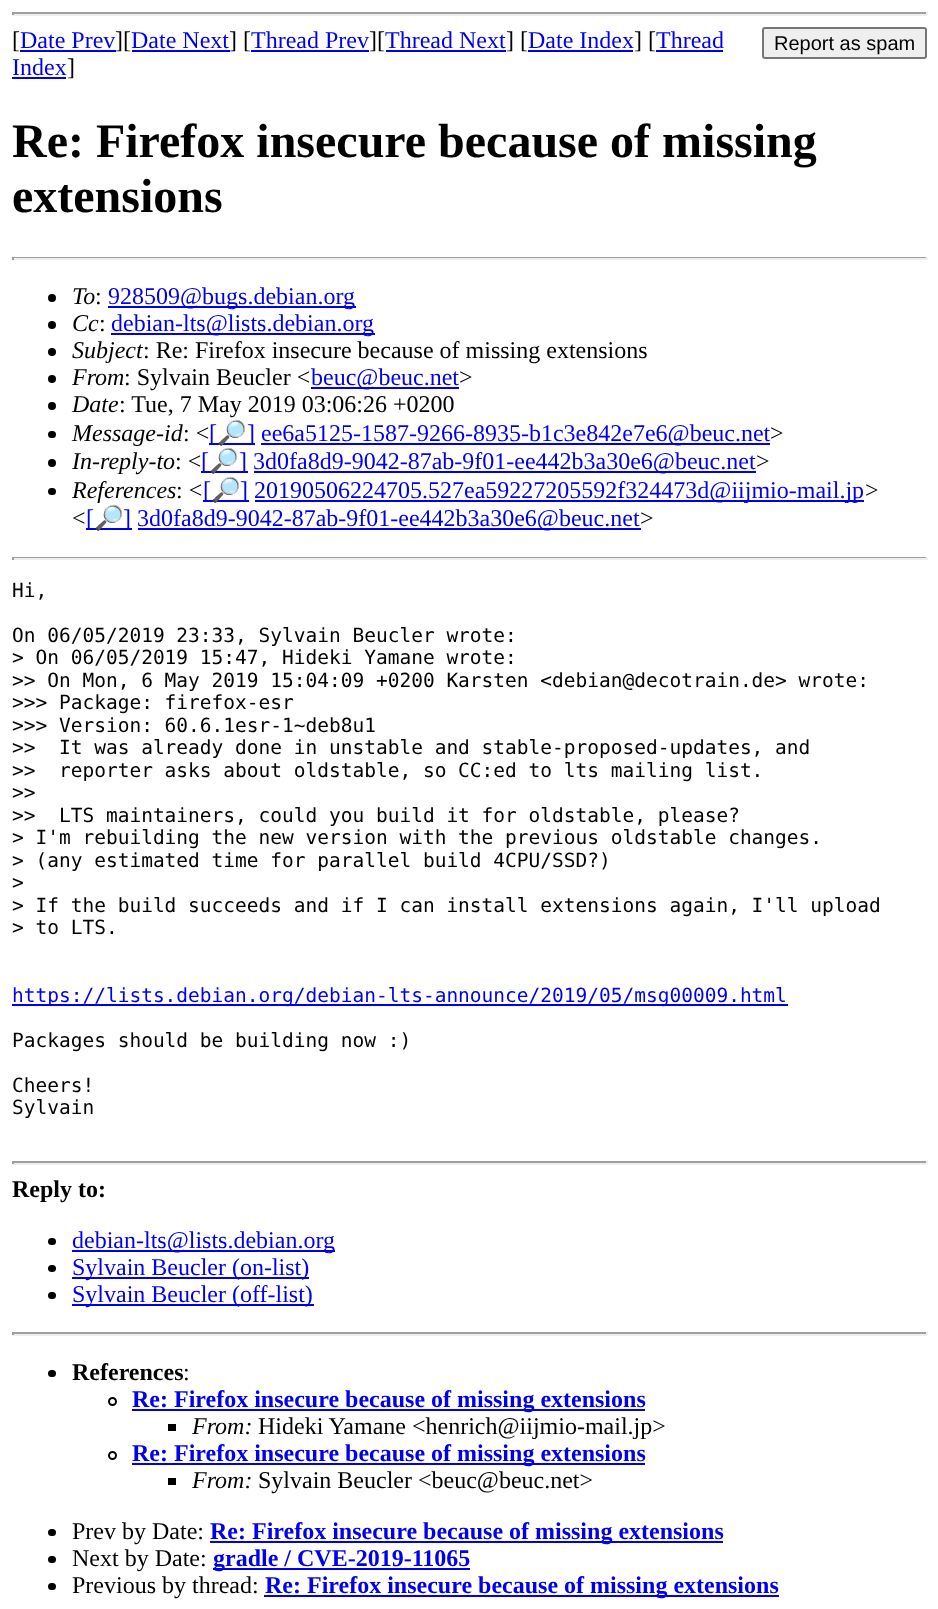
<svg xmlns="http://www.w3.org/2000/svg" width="938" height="1609">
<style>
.a{font:24px Liberation Serif;fill:#000}
.b{font:24px Liberation Serif;fill:#00e}
.c{font:20px Liberation Sans;fill:#000}
.d{font:bold 48px Liberation Serif;fill:#000}
.e{font:italic 24px Liberation Serif;fill:#000}
.f{font:24px Noto Color Emoji;fill:#00e}
.g{font:19.5px DejaVu Sans Mono;fill:#000}
.h{font:19.5px DejaVu Sans Mono;fill:#00e}
.i{font:bold 24px Liberation Serif;fill:#000}
.j{font:bold 24px Liberation Serif;fill:#00e}
</style>
<rect width="100%" height="100%" fill="#fff"/>
<path fill="#9f9f9f" d="M12 12h915v2H12z"/>
<path fill="#eee" d="M926 12h2v3H926z"/>
<path fill="#eee" d="M12 14h915v2H12z"/>
<path fill="#9f9f9f" d="M12 12h2v3H12z"/>
<path fill="#00e" d="M20 50h96v2H20z"/>
<path fill="#00e" d="M132 50h98v2H132z"/>
<path fill="#00e" d="M251 50h118v2H251z"/>
<path fill="#00e" d="M386 50h120v2H386z"/>
<path fill="#00e" d="M528 50h105v2H528z"/>
<path fill="#00e" d="M656 50h67v2H656z"/>
<rect fill="#efefef" stroke="#767676" stroke-width="2" x="763" y="28" width="163" height="30" rx="2"/>
<path fill="#00e" d="M12 77h54v2H12z"/>
<path fill="#9f9f9f" d="M12 257h915v1H12z"/>
<path fill="#eee" d="M926 257h2v3H926z"/>
<path fill="#eee" d="M12 258h915v2H12z"/>
<path fill="#9f9f9f" d="M12 257h2v3H12z"/>
<circle fill="#000" cx="52" cy="298" r="4"/>
<path fill="#00e" d="M108 306h248v2H108z"/>
<circle fill="#000" cx="52" cy="325" r="4"/>
<path fill="#00e" d="M111 333h264v2H111z"/>
<circle fill="#000" cx="52" cy="352" r="4"/>
<circle fill="#000" cx="52" cy="379" r="4"/>
<path fill="#00e" d="M311 387h148v2H311z"/>
<circle fill="#000" cx="52" cy="406" r="4"/>
<rect fill="#000" x="48" y="431" width="8" height="7" rx="3.5"/>
<path fill="#00e" d="M209 443h46v2H209z"/>
<path fill="#00e" d="M261 443h509v2H261z"/>
<circle fill="#000" cx="52" cy="463" r="4"/>
<path fill="#00e" d="M201 471h47v2H201z"/>
<path fill="#00e" d="M254 471h502v2H254z"/>
<rect fill="#000" x="48" y="488" width="8" height="7" rx="3.5"/>
<path fill="#00e" d="M203 500h46v2H203z"/>
<path fill="#00e" d="M255 500h609v2H255z"/>
<path fill="#00e" d="M86 528h46v2H86z"/>
<path fill="#00e" d="M138 528h503v2H138z"/>
<path fill="#9f9f9f" d="M12 557h915v1H12z"/>
<path fill="#eee" d="M926 557h2v3H926z"/>
<path fill="#eee" d="M12 558h915v2H12z"/>
<path fill="#9f9f9f" d="M12 557h2v3H12z"/>
<path fill="#00e" d="M12 1004h776v2H12z"/>
<path fill="#9f9f9f" d="M12 1161h915v2H12z"/>
<path fill="#eee" d="M926 1161h2v3H926z"/>
<path fill="#eee" d="M12 1163h915v2H12z"/>
<path fill="#9f9f9f" d="M12 1161h2v3H12z"/>
<rect fill="#000" x="48" y="1238" width="8" height="7" rx="3.5"/>
<path fill="#00e" d="M72 1250h263v2H72z"/>
<rect fill="#000" x="48" y="1265" width="8" height="7" rx="3.5"/>
<path fill="#00e" d="M72 1277h237v2H72z"/>
<rect fill="#000" x="48" y="1292" width="8" height="7" rx="3.5"/>
<path fill="#00e" d="M72 1304h242v2H72z"/>
<path fill="#9f9f9f" d="M12 1332h915v2H12z"/>
<path fill="#eee" d="M926 1332h2v3H926z"/>
<path fill="#eee" d="M12 1334h915v2H12z"/>
<path fill="#9f9f9f" d="M12 1332h2v3H12z"/>
<rect fill="#000" x="48" y="1370" width="8" height="7" rx="3.5"/>
<circle fill="none" stroke="#000" stroke-width="2" cx="112.5" cy="1401.5" r="3.5"/>
<path fill="#00e" d="M132 1409h513v2H132z"/>
<path fill="#000" d="M168 1424h8v7H168z"/>
<circle fill="none" stroke="#000" stroke-width="2" cx="112.5" cy="1455.5" r="3.5"/>
<path fill="#00e" d="M132 1463h513v2H132z"/>
<path fill="#000" d="M168 1478h8v7H168z"/>
<rect fill="#000" x="48" y="1529" width="8" height="7" rx="3.5"/>
<path fill="#00e" d="M210 1541h513v2H210z"/>
<rect fill="#000" x="48" y="1556" width="8" height="7" rx="3.5"/>
<path fill="#00e" d="M213 1568h257v2H213z"/>
<rect fill="#000" x="48" y="1583" width="8" height="7" rx="3.5"/>
<path fill="#00e" d="M264 1595h515v2H264z"/>
<text class="a" x="12" y="48">[</text>
<text class="b" x="20" y="48">Date Prev</text>
<text class="a" x="115" y="48">][</text>
<text class="b" x="131" y="48">Date Next</text>
<text class="a" x="229" y="48">] [</text>
<text class="b" x="251" y="48">Thread Prev</text>
<text class="a" x="369" y="48">][</text>
<text class="b" x="385" y="48">Thread Next</text>
<text class="a" x="506" y="48">] [</text>
<text class="b" x="528" y="48">Date Index</text>
<text class="a" x="634" y="48">] [</text>
<text class="b" x="656" y="48">Thread</text>
<text class="c" x="774" y="50">Report as spam</text>
<text class="b" x="12" y="75">Index</text>
<text class="a" x="67" y="75">]</text>
<text class="d" x="12" y="157">Re: Firefox insecure because of missing</text>
<text class="d" x="12" y="212">extensions</text>
<text class="e" x="72" y="304">To</text>
<text class="a" x="95" y="304">:</text>
<text class="b" x="108" y="304">928509@bugs.debian.org</text>
<text class="e" x="72" y="331">Cc</text>
<text class="a" x="99" y="331">:</text>
<text class="b" x="111" y="331">debian-lts@lists.debian.org</text>
<text class="e" x="72" y="358">Subject</text>
<text class="a" x="143" y="358">: Re: Firefox insecure because of missing extensions</text>
<text class="e" x="72" y="385">From</text>
<text class="a" x="124" y="385">: Sylvain Beucler &lt;</text>
<text class="b" x="311" y="385">beuc@beuc.net</text>
<text class="a" x="459" y="385">&gt;</text>
<text class="e" x="72" y="412">Date</text>
<text class="a" x="119" y="412">: Tue, 7 May 2019 03:06:26 +0200</text>
<text class="e" x="72" y="441">Message-id</text>
<text class="a" x="183" y="441">: &lt;</text>
<text class="b" x="209" y="441">[</text>
<text class="f" x="217" y="441">🔎</text>
<text class="b" x="247" y="441">]</text>
<text class="b" x="261" y="441">ee6a5125-1587-9266-8935-b1c3e842e7e6@beuc.net</text>
<text class="a" x="770" y="441">&gt;</text>
<text class="e" x="72" y="469">In-reply-to</text>
<text class="a" x="175" y="469">: &lt;</text>
<text class="b" x="201" y="469">[</text>
<text class="f" x="209" y="469">🔎</text>
<text class="b" x="239" y="469">]</text>
<text class="b" x="253" y="469">3d0fa8d9-9042-87ab-9f01-ee442b3a30e6@beuc.net</text>
<text class="a" x="756" y="469">&gt;</text>
<text class="e" x="72" y="498">References</text>
<text class="a" x="176" y="498">: &lt;</text>
<text class="b" x="203" y="498">[</text>
<text class="f" x="211" y="498">🔎</text>
<text class="b" x="240" y="498">]</text>
<text class="b" x="254" y="498">20190506224705.527ea59227205592f324473d@iijmio-mail.jp</text>
<text class="a" x="865" y="498">&gt;</text>
<text class="a" x="72" y="526">&lt;</text>
<text class="b" x="86" y="526">[</text>
<text class="f" x="94" y="526">🔎</text>
<text class="b" x="123" y="526">]</text>
<text class="b" x="137" y="526">3d0fa8d9-9042-87ab-9f01-ee442b3a30e6@beuc.net</text>
<text class="a" x="640" y="526">&gt;</text>
<text class="g" x="12" y="597">Hi,</text>
<text class="g" x="12" y="642">On 06/05/2019 23:33, Sylvain Beucler wrote:</text>
<text class="g" x="12" y="664">&gt; On 06/05/2019 15:47, Hideki Yamane wrote:</text>
<text class="g" x="12" y="687">&gt;&gt; On Mon, 6 May 2019 15:04:09 +0200 Karsten &lt;debian@decotrain.de&gt; wrote:</text>
<text class="g" x="12" y="709">&gt;&gt;&gt; Package: firefox-esr</text>
<text class="g" x="12" y="732">&gt;&gt;&gt; Version: 60.6.1esr-1~deb8u1</text>
<text class="g" xml:space="preserve" x="12" y="754">&gt;&gt;  It was already done in unstable and stable-proposed-updates, and</text>
<text class="g" xml:space="preserve" x="12" y="777">&gt;&gt;  reporter asks about oldstable, so CC:ed to lts mailing list.</text>
<text class="g" x="12" y="799">&gt;&gt;</text>
<text class="g" xml:space="preserve" x="12" y="822">&gt;&gt;  LTS maintainers, could you build it for oldstable, please?</text>
<text class="g" x="12" y="844">&gt; I'm rebuilding the new version with the previous oldstable changes.</text>
<text class="g" x="12" y="867">&gt; (any estimated time for parallel build 4CPU/SSD?)</text>
<text class="g" x="12" y="889">&gt;</text>
<text class="g" x="12" y="912">&gt; If the build succeeds and if I can install extensions again, I'll upload</text>
<text class="g" x="12" y="934">&gt; to LTS.</text>
<text class="h" x="12" y="1002">https://lists.debian.org/debian-lts-announce/2019/05/msg00009.html</text>
<text class="g" x="12" y="1047">Packages should be building now :)</text>
<text class="g" x="12" y="1092">Cheers!</text>
<text class="g" x="12" y="1114">Sylvain</text>
<text class="i" x="12" y="1197">Reply to:</text>
<text class="b" x="72" y="1248">debian-lts@lists.debian.org</text>
<text class="b" x="72" y="1275">Sylvain Beucler (on-list)</text>
<text class="b" x="72" y="1302">Sylvain Beucler (off-list)</text>
<text class="i" x="72" y="1380">References</text>
<text class="a" x="183" y="1380">:</text>
<text class="j" x="132" y="1407">Re: Firefox insecure because of missing extensions</text>
<text class="e" x="192" y="1434">From:</text>
<text class="a" x="258" y="1434">Hideki Yamane &lt;henrich@iijmio-mail.jp&gt;</text>
<text class="j" x="132" y="1461">Re: Firefox insecure because of missing extensions</text>
<text class="e" x="192" y="1488">From:</text>
<text class="a" x="258" y="1488">Sylvain Beucler &lt;beuc@beuc.net&gt;</text>
<text class="a" x="72" y="1539">Prev by Date:</text>
<text class="j" x="210" y="1539">Re: Firefox insecure because of missing extensions</text>
<text class="a" x="72" y="1566">Next by Date:</text>
<text class="j" x="213" y="1566">gradle / CVE-2019-11065</text>
<text class="a" x="72" y="1593">Previous by thread:</text>
<text class="j" x="265" y="1593">Re: Firefox insecure because of missing extensions</text>
</svg>
